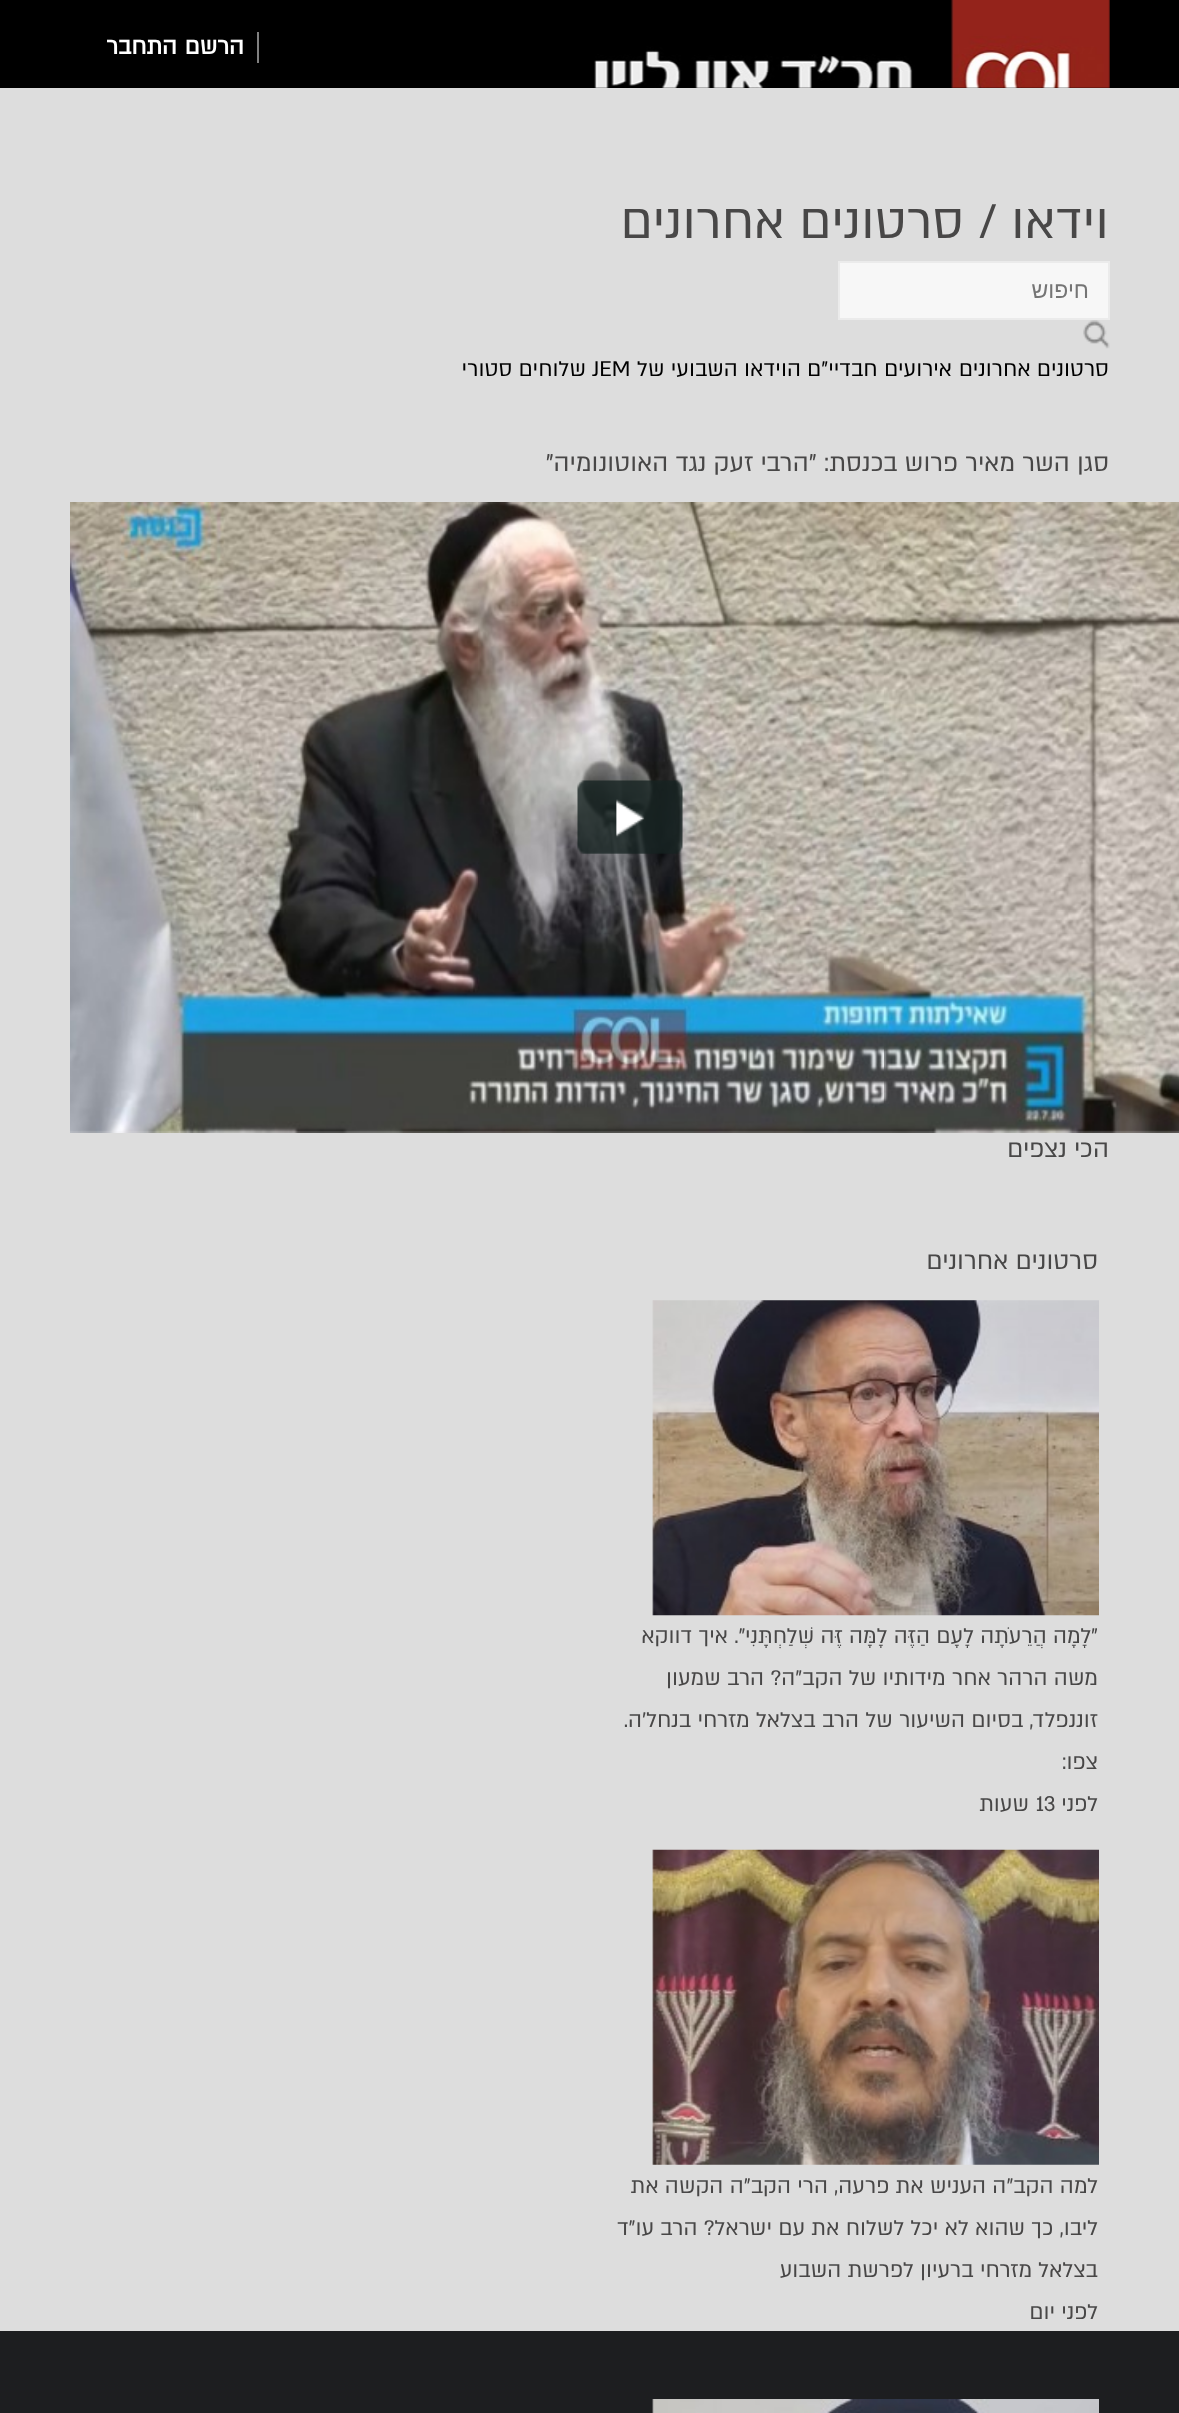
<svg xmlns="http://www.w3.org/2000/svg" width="1179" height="2413">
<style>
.a{font:bold 26px 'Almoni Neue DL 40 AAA';direction:rtl;fill:#fff}
.b{font:56px 'Almoni Neue DL 40 AAA';direction:rtl;fill:#484747}
.c{font:23px Liberation Sans;direction:rtl;fill:#757575}
.d{font:24.5px 'Almoni Neue DL 40 AAA';direction:rtl;fill:#000}
.e{font:24.5px 'Almoni Neue DL 40 AAA';fill:#000}
.f{font:28px 'Almoni Neue DL 40 AAA';direction:rtl;fill:#484747}
.g{font:24.5px 'Almoni Neue DL 40 AAA';direction:rtl;fill:#484747}
.h{font:24.5px 'Almoni Neue DL 40 AAA';fill:#484747}
</style>
<rect width="100%" height="100%" fill="#ddd"/>
<path fill="#000" d="M0 0h1179v88H0z"/>
<image href="1.png" x="594" y="0" width="516" height="88"/>
<path fill="#808080" d="M257 32h2v31H257z"/>
<path fill="#f7f7f7" stroke="#ebebeb" stroke-width="2" d="M839 262h270v57H839z"/>
<image href="2.png" x="1083" y="320" width="27" height="29"/>
<image href="3.png" x="70" y="502" width="1109" height="631"/>
<image href="4.png" x="577" y="780" width="106" height="74"/>
<image href="5.png" x="652" y="1300" width="447" height="316"/>
<image href="6.png" x="652" y="1849" width="447" height="316"/>
<path fill="#1d1e20" d="M0 2331h1179v82H0z"/>
<image href="7.png" x="652" y="2399" width="447" height="14"/>
<text class="a" x="244" y="54">הרשם</text>
<text class="a" x="177" y="54">התחבר</text>
<text class="b" x="1109" y="238">וידאו /</text>
<text class="b" x="964" y="238">סרטונים אחרונים</text>
<text class="c" x="1089" y="298">חיפוש</text>
<text class="d" x="1109" y="376">סרטונים אחרונים</text>
<text class="d" x="952" y="376">אירועים חבדיי"ם</text>
<text class="d" x="801" y="376">הוידאו השבועי של</text>
<text class="e" x="592" y="376">JEM</text>
<text class="d" x="586" y="376">שלוחים סטורי</text>
<text class="f" x="1109" y="471">סגן השר מאיר פרוש בכנסת: "הרבי זעק נגד האוטונומיה"</text>
<text class="f" x="1109" y="1157">הכי נצפים</text>
<text class="f" x="1098" y="1269">סרטונים אחרונים</text>
<text class="g" x="1098" y="1643">"לָמָה הֲרֵעֹתָה לָעָם הַזֶּה לָמָּה זֶּה שְׁלַחְתָּנִי". איך דווקא</text>
<text class="g" x="1098" y="1685">משה הרהר אחר מידותיו של הקב"ה? הרב שמעון</text>
<text class="g" x="1098" y="1727">זוננפלד, בסיום השיעור של הרב בצלאל מזרחי בנחל'ה.</text>
<text class="g" x="1098" y="1769">צפו:</text>
<text class="g" x="1098" y="1811">לפני</text>
<text class="h" x="1036" y="1811">13</text>
<text class="g" x="1029" y="1811">שעות</text>
<text class="g" x="1098" y="2193">למה הקב"ה העניש את פרעה, הרי הקב"ה הקשה את</text>
<text class="g" x="1098" y="2235">ליבו, כך שהוא לא יכל לשלוח את עם ישראל? הרב עו"ד</text>
<text class="g" x="1098" y="2277">בצלאל מזרחי ברעיון לפרשת השבוע</text>
<text class="g" x="1098" y="2319">לפני יום</text>
</svg>
